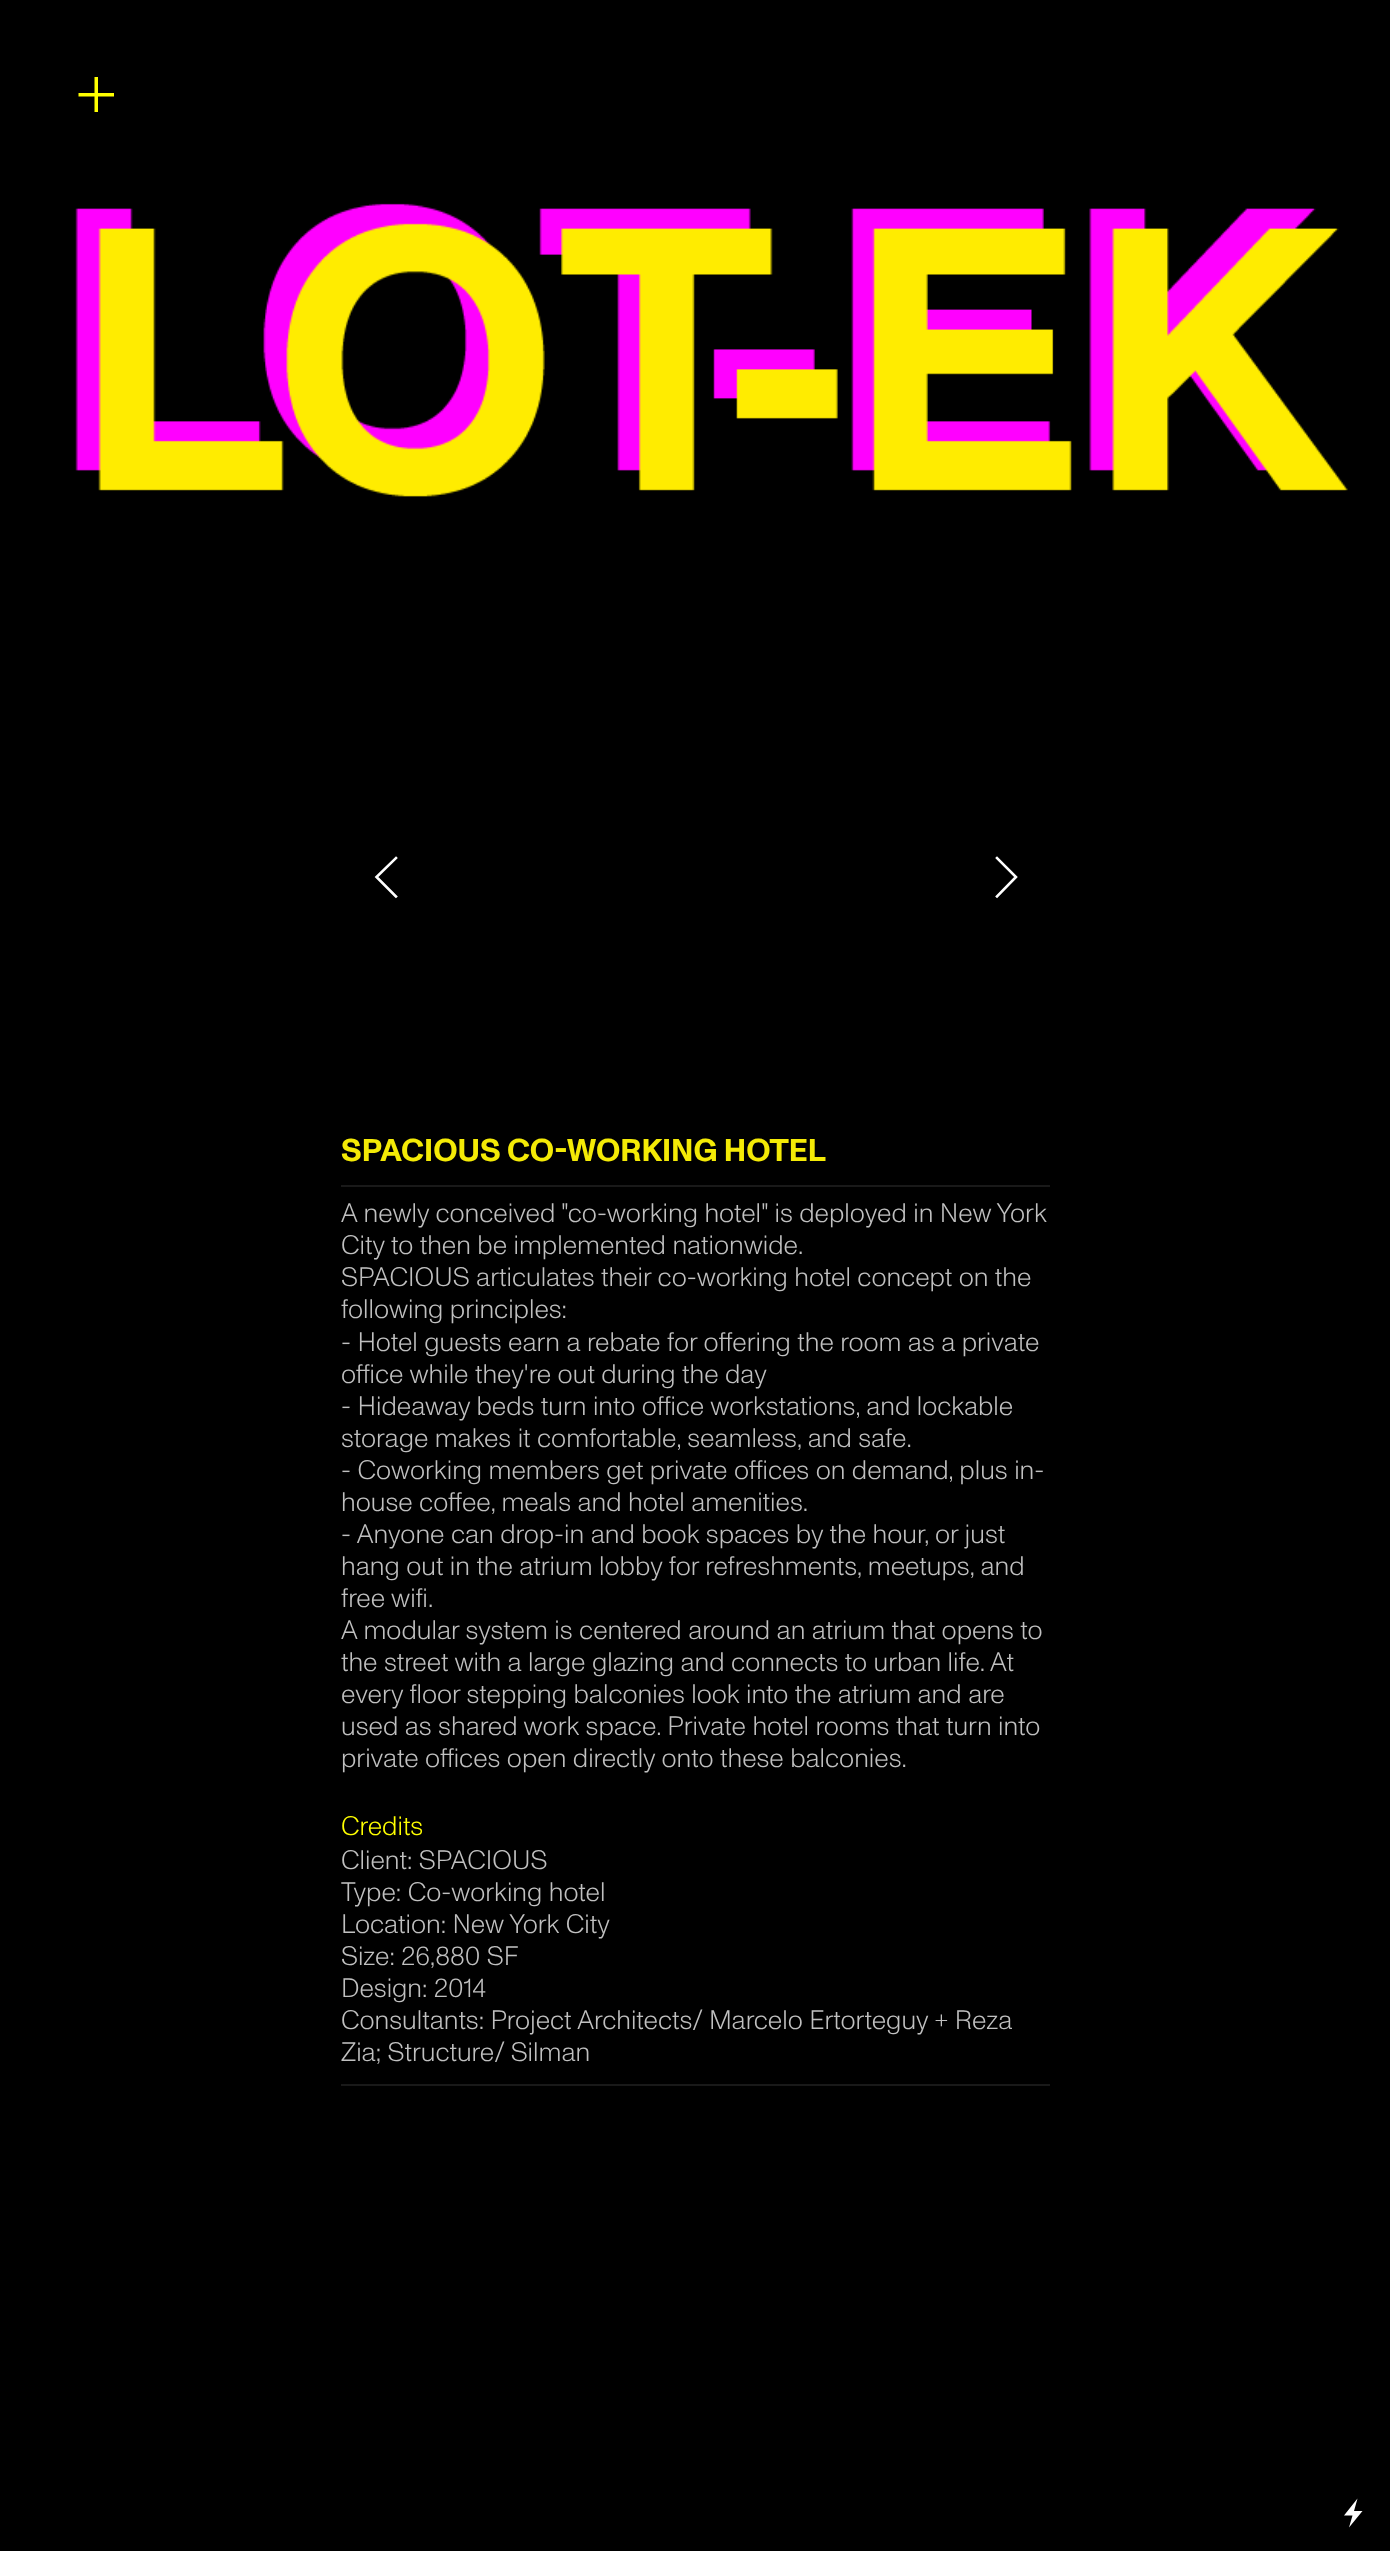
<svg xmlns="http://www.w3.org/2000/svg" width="1390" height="2551">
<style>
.a{font:bold 31.5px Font;fill:#f4ea06}
.b{font:300 26.7px Font;fill:#c0c0c0}
.c{font:300 26.7px Font;fill:#ff0}
</style>
<rect width="100%" height="100%" fill="#000"/>
<path fill="#ff0" d="M98 93v-16h-3.5v16h-16v3.5h16v15.5h3.5v-15.5h16v-3.5z"/>
<image href="1.png" x="75" y="203" width="1273" height="294"/>
<path fill="none" stroke="#fff" stroke-width="2.6" stroke-linecap="square" d="M396 896.5l-19.5-19.5l19.5-19"/>
<path fill="none" stroke="#fff" stroke-width="2.6" stroke-linecap="square" d="M997 896.5l19-19.5l-19-19"/>
<path fill="#191919" d="M341 1185h709v2H341z"/>
<path fill="#191919" d="M341 2084h709v2H341z"/>
<path fill="#fff" d="M1362.5 2511h-8.5l3.5-12.5l-13.5 17h8.5l-3.5 12z"/>
<text class="a" x="341" y="1161">SPACIOUS CO-WORKING HOTEL</text>
<text class="b" x="341" y="1222">A newly conceived "co-working hotel" is deployed in New York</text>
<text class="b" x="341" y="1254">City to then be implemented nationwide.</text>
<text class="b" x="341" y="1286">SPACIOUS articulates their co-working hotel concept on the</text>
<text class="b" x="341" y="1318">following principles:</text>
<text class="b" x="341" y="1351">- Hotel guests earn a rebate for offering the room as a private</text>
<text class="b" x="341" y="1383">office while they're out during the day</text>
<text class="b" x="341" y="1415">- Hideaway beds turn into office workstations, and lockable</text>
<text class="b" x="341" y="1447">storage makes it comfortable, seamless, and safe.</text>
<text class="b" x="341" y="1479">- Coworking members get private offices on demand, plus in-</text>
<text class="b" x="341" y="1511">house coffee, meals and hotel amenities.</text>
<text class="b" x="341" y="1543">- Anyone can drop-in and book spaces by the hour, or just</text>
<text class="b" x="341" y="1575">hang out in the atrium lobby for refreshments, meetups, and</text>
<text class="b" x="341" y="1607">free wifi.</text>
<text class="b" x="341" y="1639">A modular system is centered around an atrium that opens to</text>
<text class="b" x="341" y="1671">the street with a large glazing and connects to urban life. At</text>
<text class="b" x="341" y="1703">every floor stepping balconies look into the atrium and are</text>
<text class="b" x="341" y="1735">used as shared work space. Private hotel rooms that turn into</text>
<text class="b" x="341" y="1767">private offices open directly onto these balconies.</text>
<text class="c" x="341" y="1835">Credits</text>
<text class="b" x="341" y="1869">Client: SPACIOUS</text>
<text class="b" x="341" y="1901">Type: Co-working hotel</text>
<text class="b" x="341" y="1933">Location: New York City</text>
<text class="b" x="341" y="1965">Size: 26,880 SF</text>
<text class="b" x="341" y="1997">Design: 2014</text>
<text class="b" x="341" y="2029">Consultants: Project Architects/ Marcelo Ertorteguy + Reza</text>
<text class="b" x="341" y="2061">Zia; Structure/ Silman</text>
</svg>
